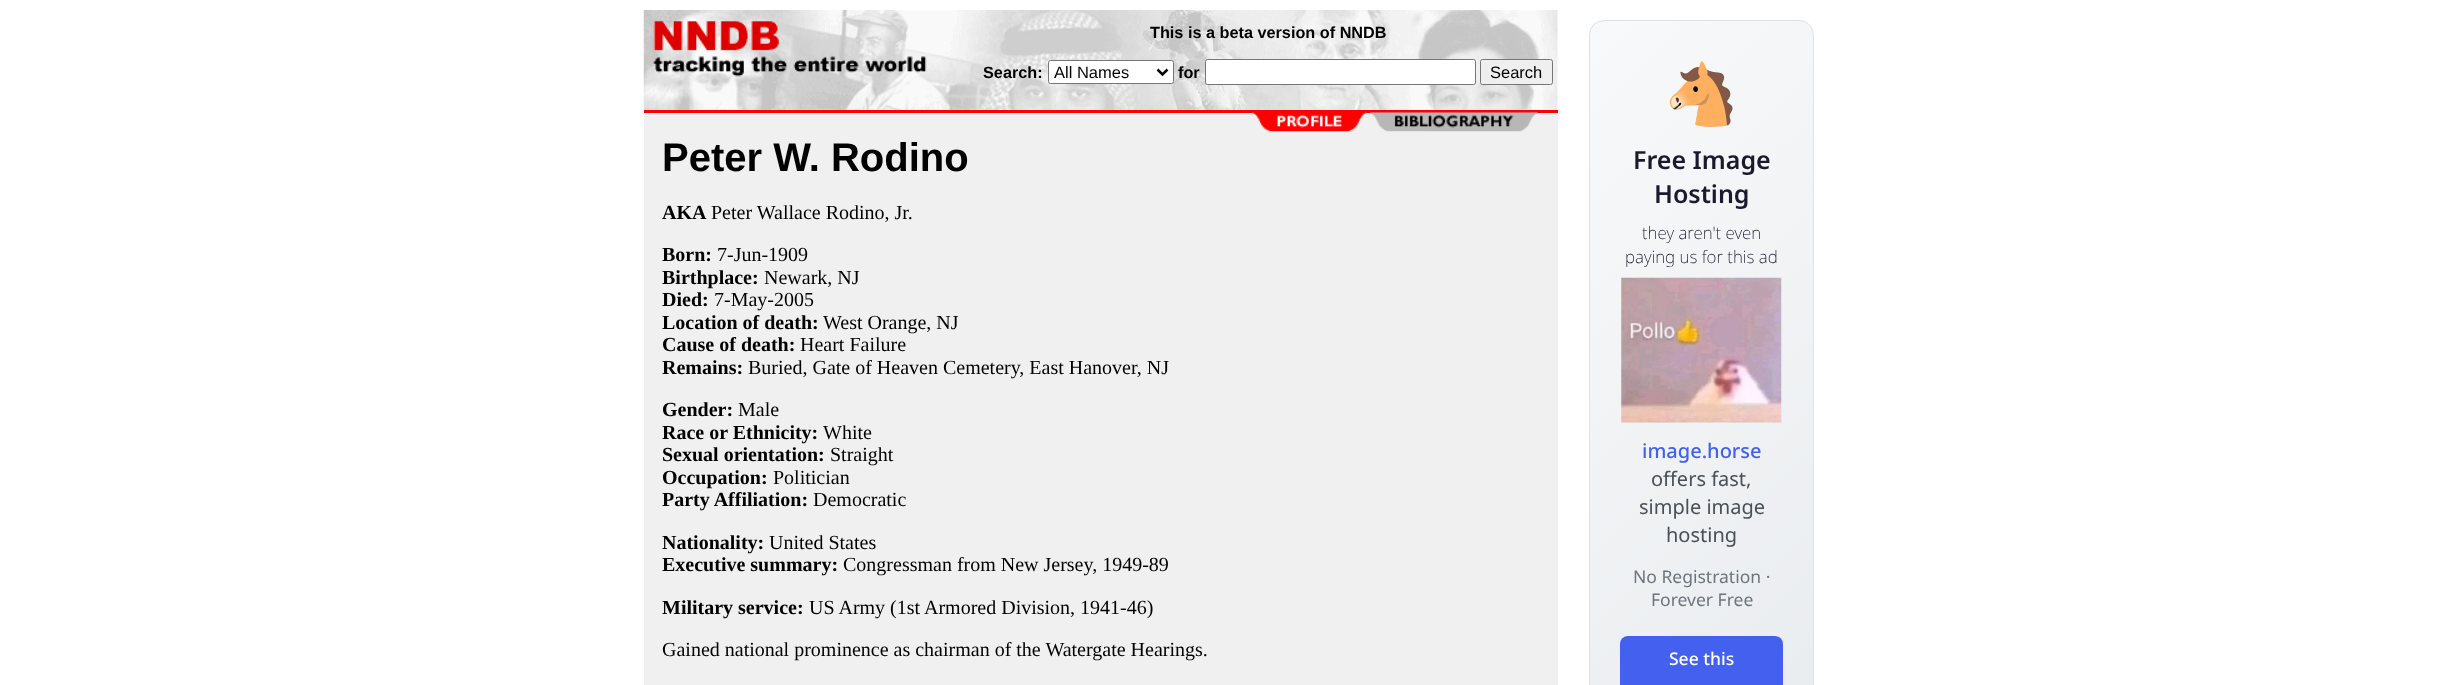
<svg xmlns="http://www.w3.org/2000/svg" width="2457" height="685">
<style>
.a{font:bold 16.25px Liberation Sans;fill:#000}
.b{font:16.5px Liberation Sans;fill:#000}
.c{font:bold 40px Liberation Sans;fill:#000}
.d{font:bold 20px Liberation Serif;fill:#000}
.e{font:20px Liberation Serif;fill:#000}
.f{font:60px Noto Color Emoji;fill:#00e}
.g{font:600 25px Noto Sans;fill:#1a1a2e}
.h{font:200 17px Noto Sans;fill:#0a0a1e}
.i{font:500 20px Noto Sans;fill:#4361ee}
.j{font:20px Noto Sans;fill:#495057}
.k{font:17.5px Noto Sans;fill:#6c757d}
.l{font:500 17.5px Noto Sans;fill:#fff}
</style>
<defs>
<clipPath id="clip1"><rect x="1589" y="20" width="225" height="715" rx="15"/></clipPath>
<linearGradient id="g1" gradientUnits="userSpaceOnUse" x1="1468" y1="144" x2="1935" y2="611"><stop offset="0" stop-color="#f8f9fa"/><stop offset="1" stop-color="#e9ecef"/></linearGradient>
</defs>
<rect width="100%" height="100%" fill="#fff"/>
<image href="1.png" x="643" y="10" width="915" height="100"/>
<image href="2.png" x="653" y="21" width="274" height="56"/>
<rect fill="#fff" stroke="#767676" x="1048.5" y="60.5" width="125" height="23" rx="2"/>
<path fill="none" stroke="#000" stroke-width="2.5" d="M1157.5 69.5l5 5l5-5"/>
<rect fill="#fff" stroke="#767676" x="1205.5" y="59.5" width="270" height="25" rx="2"/>
<rect fill="#efefef" stroke="#767676" x="1480.5" y="59.5" width="72" height="25" rx="2"/>
<path fill="#f00" d="M644 110h914v3H644z"/>
<path fill="#f0f0f0" d="M644 113h914v572H644z"/>
<image href="3.png" x="1252" y="112" width="286" height="20"/>
<g clip-path="url(#clip1)">
<path fill="url(#g1)" d="M1590 21h223v664H1590z"/>
</g>
<rect fill="none" stroke="#dee2e6" x="1589.5" y="20.5" width="224" height="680" rx="14.5"/>
<image href="4.png" x="1621" y="277" width="161" height="146"/>
<rect fill="#4361ee" x="1620" y="636" width="163" height="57" rx="8"/>
<text class="a" x="1150" y="38">This is a beta version of NNDB</text>
<text class="a" x="983" y="78">Search:</text>
<text class="b" x="1054" y="78">All Names</text>
<text class="a" x="1178" y="78">for</text>
<text class="b" x="1490" y="78">Search</text>
<text class="c" x="662" y="171">Peter W. Rodino</text>
<text class="d" x="662" y="219">AKA</text>
<text class="e" x="711" y="219">Peter Wallace Rodino, Jr.</text>
<text class="d" x="662" y="261">Born:</text>
<text class="e" x="717" y="261">7-Jun-1909</text>
<text class="d" x="662" y="284">Birthplace:</text>
<text class="e" x="764" y="284">Newark, NJ</text>
<text class="d" x="662" y="306">Died:</text>
<text class="e" x="714" y="306">7-May-2005</text>
<text class="d" x="662" y="329">Location of death:</text>
<text class="e" x="823" y="329">West Orange, NJ</text>
<text class="d" x="662" y="351">Cause of death:</text>
<text class="e" x="800" y="351">Heart Failure</text>
<text class="d" x="662" y="374">Remains:</text>
<text class="e" x="748" y="374">Buried, Gate of Heaven Cemetery, East Hanover, NJ</text>
<text class="d" x="662" y="416">Gender:</text>
<text class="e" x="738" y="416">Male</text>
<text class="d" x="662" y="439">Race or Ethnicity:</text>
<text class="e" x="823" y="439">White</text>
<text class="d" x="662" y="461">Sexual orientation:</text>
<text class="e" x="830" y="461">Straight</text>
<text class="d" x="662" y="484">Occupation:</text>
<text class="e" x="773" y="484">Politician</text>
<text class="d" x="662" y="506">Party Affiliation:</text>
<text class="e" x="813" y="506">Democratic</text>
<text class="d" x="662" y="549">Nationality:</text>
<text class="e" x="769" y="549">United States</text>
<text class="d" x="662" y="571">Executive summary:</text>
<text class="e" x="843" y="571">Congressman from New Jersey, 1949-89</text>
<text class="d" x="662" y="614">Military service:</text>
<text class="e" x="809" y="614">US Army (1st Armored Division, 1941-46)</text>
<text class="e" x="662" y="656">Gained national prominence as chairman of the Watergate Hearings.</text>
<text class="f" x="1664" y="115">🐴</text>
<text class="g" x="1633" y="169">Free Image</text>
<text class="g" x="1654" y="203">Hosting</text>
<text class="h" x="1642" y="239">they aren't even</text>
<text class="h" x="1625" y="263">paying us for this ad</text>
<text class="i" x="1642" y="458">image.horse</text>
<text class="j" x="1651" y="486">offers fast,</text>
<text class="j" x="1639" y="514">simple image</text>
<text class="j" x="1666" y="542">hosting</text>
<text class="k" x="1633" y="583">No Registration ·</text>
<text class="k" x="1651" y="606">Forever Free</text>
<text class="l" x="1669" y="665">See this</text>
</svg>
